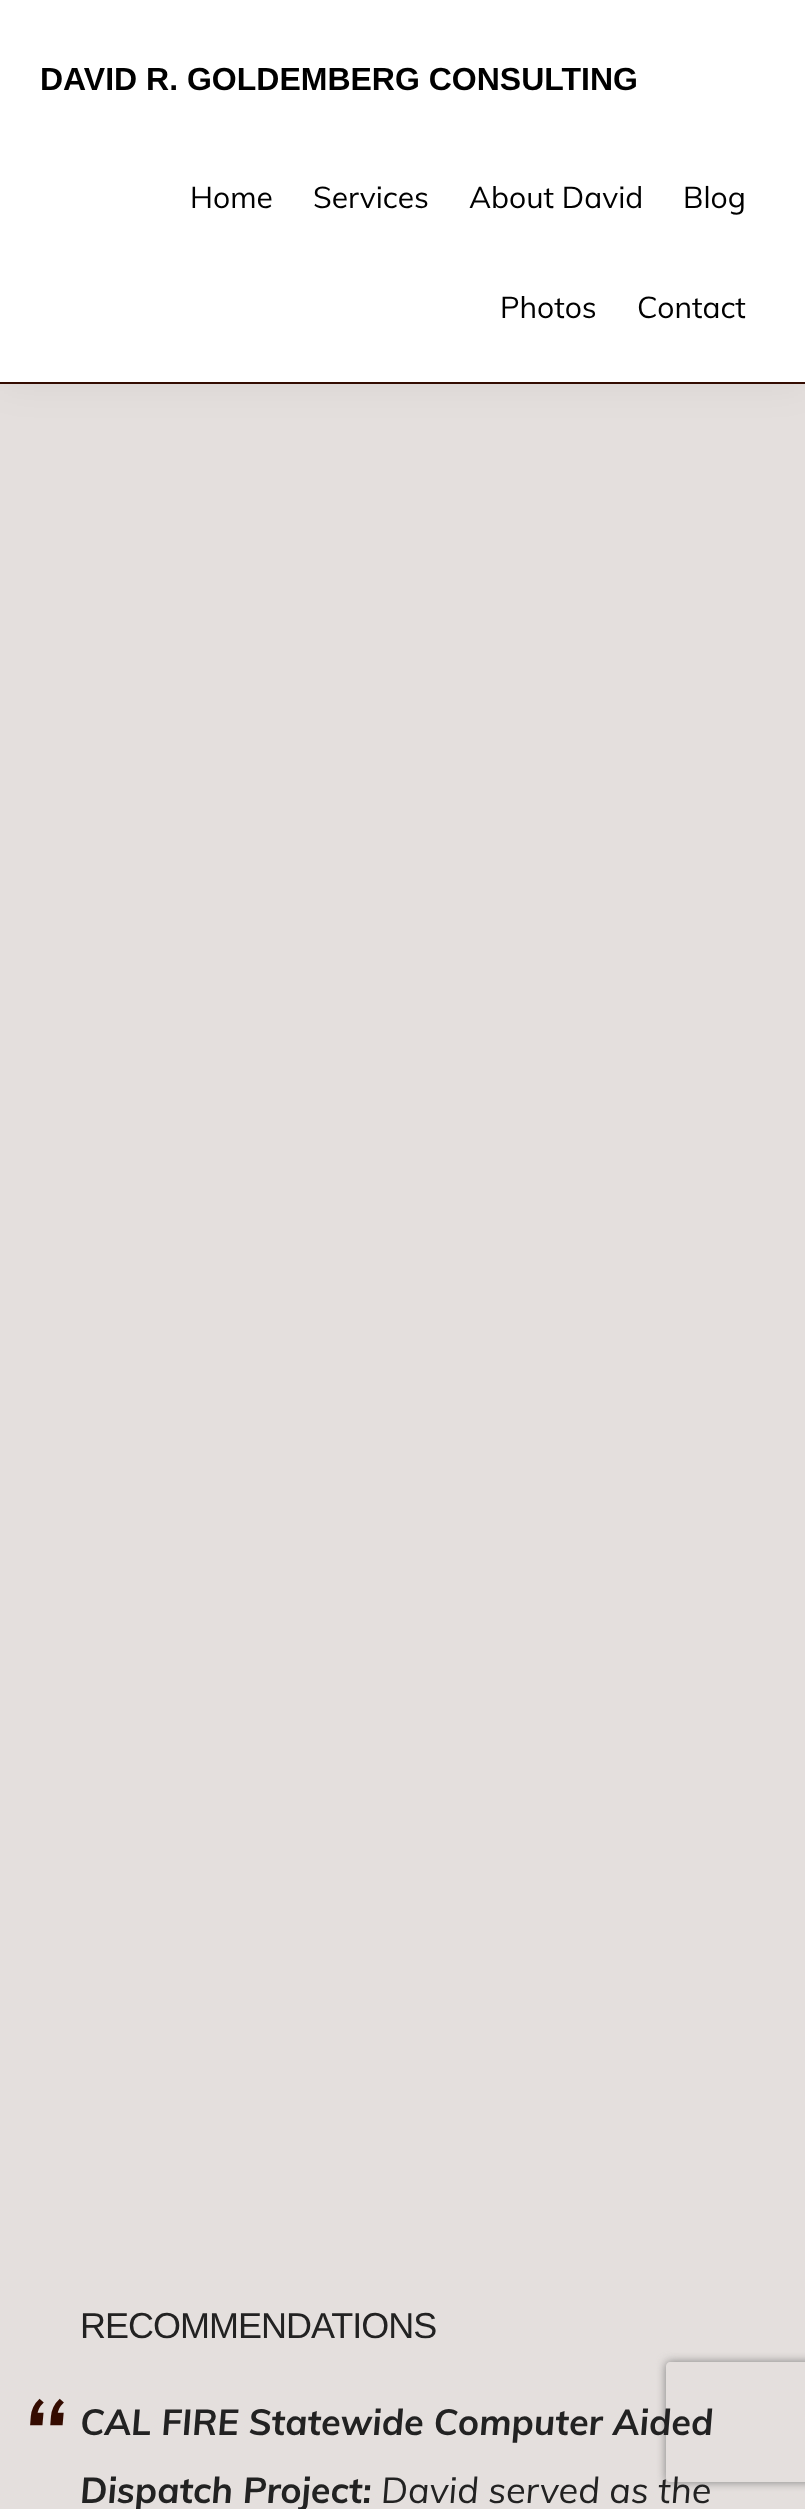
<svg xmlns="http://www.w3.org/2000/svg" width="805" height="2509">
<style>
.a{font:bold 32px Liberation Sans;fill:#000}
.b{font:30px Muli;fill:#000}
.c{font:36px Liberation Sans;letter-spacing:-1px;fill:#222}
.d{font:italic 120px Muli;fill:#340c01}
.e{font:italic bold 36px Muli;fill:#222}
.f{font:italic 36px Muli;fill:#222}
</style>
<defs>
<clipPath id="clip1"><path d="M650 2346h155v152h-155zm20 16h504c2 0 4 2 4 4v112c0 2-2 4-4 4h-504c-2 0-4-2-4-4v-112c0-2 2-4 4-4z" clip-rule="evenodd"/></clipPath>
</defs>
<rect width="100%" height="100%" fill="#e4dfdd"/>
<path fill="#0000000d" filter="blur(20px)" d="M0 0h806v384H0z"/>
<path fill="#fff" d="M0 0h805v382H0z"/>
<path fill="#340c01" d="M0 382h805v2H0z"/>
<g clip-path="url(#clip1)">
<rect fill="#808080" filter="blur(5px)" x="666" y="2362" width="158" height="120" rx="4"/>
</g>
<text class="a" x="40" y="90">DAVID R. GOLDEMBERG CONSULTING</text>
<text class="b" x="190" y="208">Home</text>
<text class="b" x="313" y="208">Services</text>
<text class="b" x="469" y="208">About David</text>
<text class="b" x="683" y="208">Blog</text>
<text class="b" x="500" y="318">Photos</text>
<text class="b" x="637" y="318">Contact</text>
<text class="c" x="80" y="2338">RECOMMENDATIONS</text>
<text class="d" x="20" y="2485">“</text>
<text class="e" x="80" y="2435">CAL FIRE Statewide Computer Aided</text>
<text class="e" x="80" y="2503">Dispatch Project:</text>
<text class="f" x="381" y="2503">David served as the</text>
</svg>
